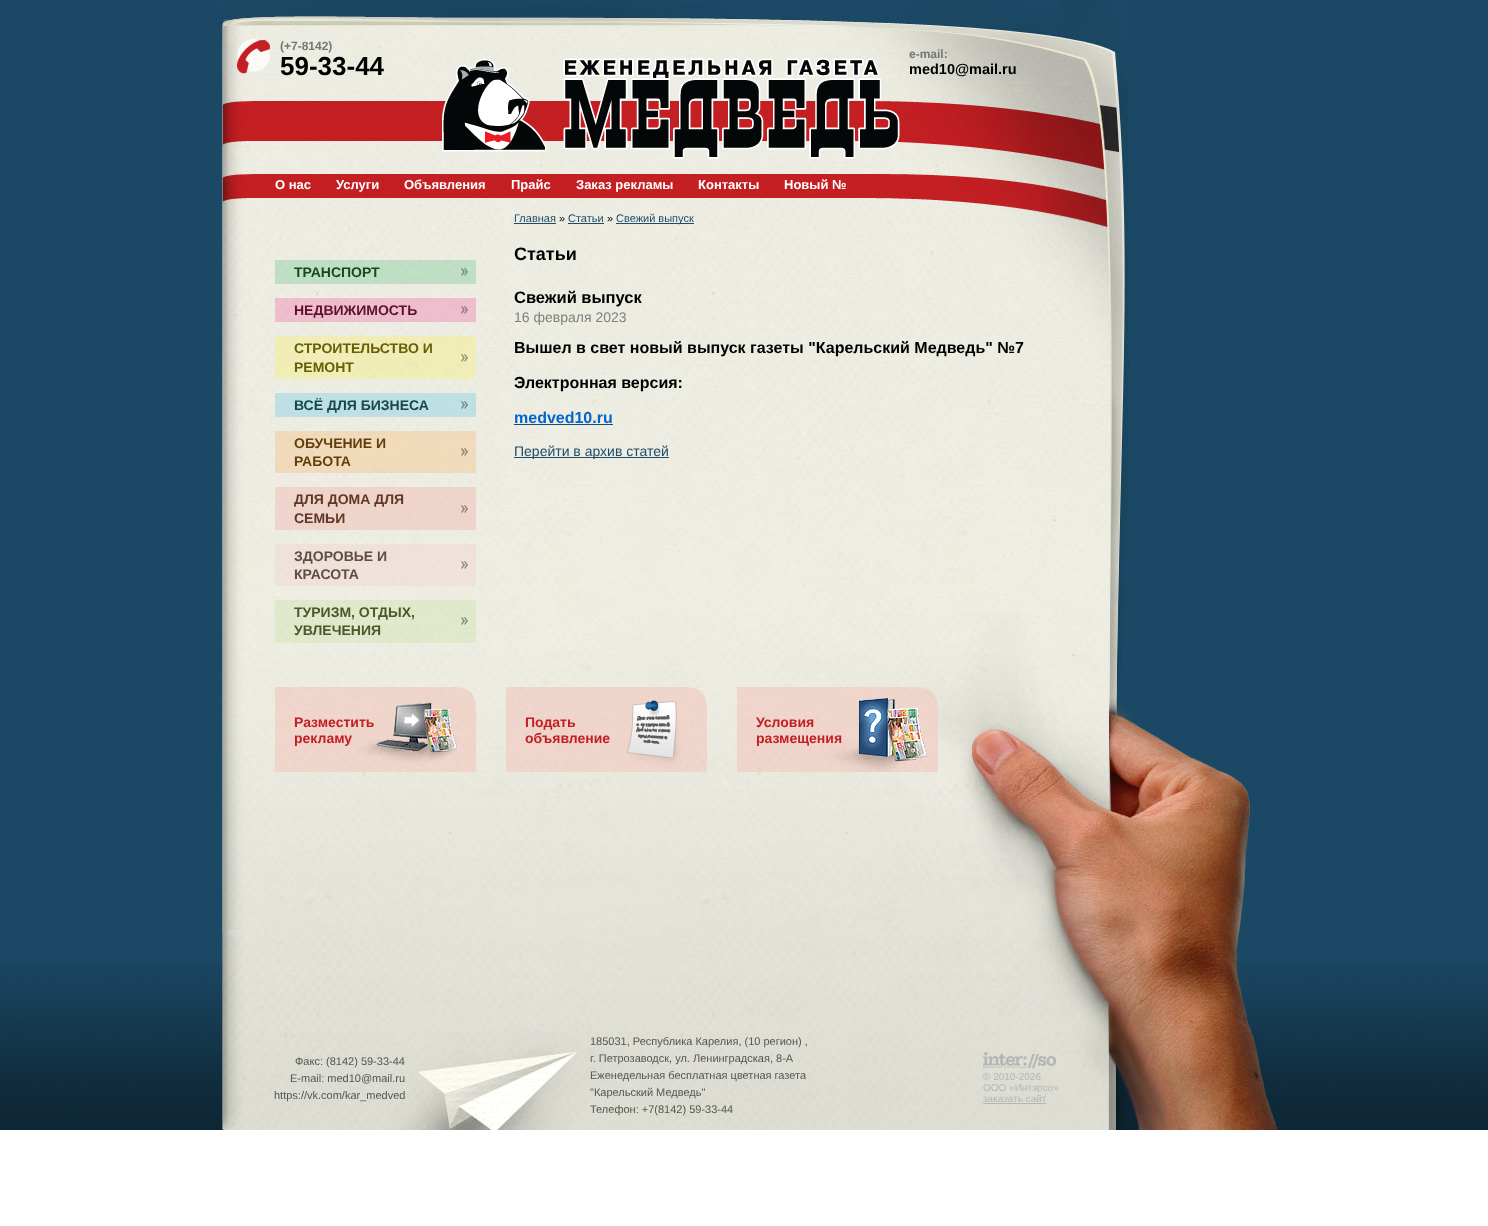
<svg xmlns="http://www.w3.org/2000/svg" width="1488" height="1226">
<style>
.a{font:bold 12px Liberation Sans;fill:#757575}
.b{font:bold 26px Liberation Sans;fill:#000}
.c{font:bold 14.5px Liberation Sans;fill:#000}
.d{font:bold 13px Liberation Sans;fill:#fff}
.e{font:bold 14px Liberation Sans;fill:#13491d}
.f{font:bold 14px Liberation Sans;fill:#5e102c}
.g{font:bold 14px Liberation Sans;fill:#656004}
.h{font:bold 14px Liberation Sans;fill:#134850}
.i{font:bold 14px Liberation Sans;fill:#603e09}
.j{font:bold 14px Liberation Sans;fill:#603625}
.k{font:bold 14px Liberation Sans;fill:#604c41}
.l{font:bold 14px Liberation Sans;fill:#4b5828}
.m{font:11px Liberation Sans;fill:#1e4c68}
.n{font:11px Liberation Sans;fill:#000}
.o{font:bold 18px Liberation Sans;fill:#000}
.p{font:bold 16.5px Liberation Sans;fill:#000}
.q{font:14px Liberation Sans;fill:#7f7f7f}
.r{font:bold 16px Liberation Sans;fill:#000}
.s{font:bold 16px Liberation Sans;fill:#06c}
.t{font:14px Liberation Sans;fill:#1e4c68}
.u{font:bold 14px Liberation Sans;fill:#c31f23}
.v{font:11px Liberation Sans;fill:#555}
.w{font:10px Liberation Sans;fill:#b5b5b5}
</style>
<rect width="100%" height="100%" fill="#fff"/>
<path fill="#1b4965" d="M0 0h1488v962H0z"/>
<image href="1.png" x="0" y="962" width="1488" height="168"/>
<image href="2.png" x="1109" y="999" width="2" height="10"/>
<image href="3.png" x="217" y="0" width="912" height="875"/>
<image href="4.png" x="1109" y="698" width="169" height="432"/>
<image href="5.png" x="222" y="613" width="887" height="517"/>
<image href="6.png" x="237" y="39" width="33" height="35"/>
<image href="7.png" x="442" y="58" width="458" height="101"/>
<image href="8.png" x="275" y="260" width="201" height="24"/>
<image href="9.png" x="461" y="268" width="7" height="8"/>
<image href="10.png" x="275" y="298" width="201" height="24"/>
<image href="11.png" x="461" y="306" width="7" height="8"/>
<image href="12.png" x="275" y="336" width="201" height="43"/>
<image href="13.png" x="461" y="354" width="7" height="8"/>
<image href="14.png" x="275" y="393" width="201" height="24"/>
<image href="15.png" x="461" y="401" width="7" height="8"/>
<image href="16.png" x="275" y="431" width="201" height="42"/>
<image href="17.png" x="461" y="448" width="7" height="8"/>
<image href="18.png" x="275" y="487" width="201" height="43"/>
<image href="19.png" x="461" y="505" width="7" height="8"/>
<image href="20.png" x="275" y="544" width="201" height="42"/>
<image href="21.png" x="461" y="561" width="7" height="8"/>
<image href="22.png" x="275" y="600" width="201" height="43"/>
<image href="23.png" x="461" y="617" width="7" height="8"/>
<path fill="#1e4c68" d="M514 223h42v1H514z"/>
<path fill="#1e4c68" d="M568 223h36v1H568z"/>
<path fill="#1e4c68" d="M616 223h78v1H616z"/>
<path fill="#1e4c68" d="M514 424h99v1H514z"/>
<path fill="#1e4c68" d="M514 457h155v1H514z"/>
<image href="24.png" x="275" y="687" width="201" height="85"/>
<image href="25.png" x="506" y="687" width="201" height="85"/>
<image href="26.png" x="737" y="687" width="201" height="85"/>
<image href="27.png" x="381" y="1008" width="264" height="122"/>
<image href="28.png" x="983" y="1052" width="73" height="16"/>
<path fill="#b5b5b5" d="M983 1103h63v1H983z"/>
<text class="a" x="280" y="50">(+7-8142)</text>
<text class="b" x="280" y="75">59-33-44</text>
<text class="a" x="909" y="58">e-mail:</text>
<text class="c" x="909" y="74">med10@mail.ru</text>
<text class="d" x="275" y="189">О нас</text>
<text class="d" x="336" y="189">Услуги</text>
<text class="d" x="404" y="189">Объявления</text>
<text class="d" x="511" y="189">Прайс</text>
<text class="d" x="576" y="189">Заказ рекламы</text>
<text class="d" x="698" y="189">Контакты</text>
<text class="d" x="784" y="189">Новый №</text>
<text class="e" x="294" y="277">ТРАНСПОРТ</text>
<text class="f" x="294" y="315">НЕДВИЖИМОСТЬ</text>
<text class="g" x="294" y="353">СТРОИТЕЛЬСТВО И</text>
<text class="g" x="294" y="372">РЕМОНТ</text>
<text class="h" x="294" y="410">ВСЁ ДЛЯ БИЗНЕСА</text>
<text class="i" x="294" y="448">ОБУЧЕНИЕ И</text>
<text class="i" x="294" y="466">РАБОТА</text>
<text class="j" x="294" y="504">ДЛЯ ДОМА ДЛЯ</text>
<text class="j" x="294" y="523">СЕМЬИ</text>
<text class="k" x="294" y="561">ЗДОРОВЬЕ И</text>
<text class="k" x="294" y="579">КРАСОТА</text>
<text class="l" x="294" y="617">ТУРИЗМ, ОТДЫХ,</text>
<text class="l" x="294" y="635">УВЛЕЧЕНИЯ</text>
<text class="m" x="514" y="222">Главная</text>
<text class="n" x="559" y="222">»</text>
<text class="m" x="568" y="222">Статьи</text>
<text class="n" x="607" y="222">»</text>
<text class="m" x="616" y="222">Свежий выпуск</text>
<text class="o" x="514" y="260">Статьи</text>
<text class="p" x="514" y="303">Свежий выпуск</text>
<text class="q" x="514" y="322">16 февраля 2023</text>
<text class="r" x="514" y="353">Вышел в свет новый выпуск газеты "Карельский Медведь" №7</text>
<text class="r" x="514" y="388">Электронная версия:</text>
<text class="s" x="514" y="423">medved10.ru</text>
<text class="t" x="514" y="456">Перейти в архив статей</text>
<text class="u" x="294" y="727">Разместить</text>
<text class="u" x="294" y="743">рекламу</text>
<text class="u" x="525" y="727">Подать</text>
<text class="u" x="525" y="743">объявление</text>
<text class="u" x="756" y="727">Условия</text>
<text class="u" x="756" y="743">размещения</text>
<text class="v" x="295" y="1065">Факс: (8142) 59-33-44</text>
<text class="v" x="290" y="1082">E-mail: med10@mail.ru</text>
<text class="v" x="274" y="1099">https://vk.com/kar_medved</text>
<text class="v" x="590" y="1045">185031, Республика Карелия, (10 регион) ,</text>
<text class="v" x="590" y="1062">г. Петрозаводск, ул. Ленинградская, 8-A</text>
<text class="v" x="590" y="1079">Еженедельная бесплатная цветная газета</text>
<text class="v" x="590" y="1096">"Карельский Медведь"</text>
<text class="v" x="590" y="1113">Телефон: +7(8142) 59-33-44</text>
<text class="w" x="983" y="1080">© 2010-2026</text>
<text class="w" x="983" y="1091">ООО «Интэрсо»</text>
<text class="w" x="983" y="1102">заказать сайт</text>
</svg>
